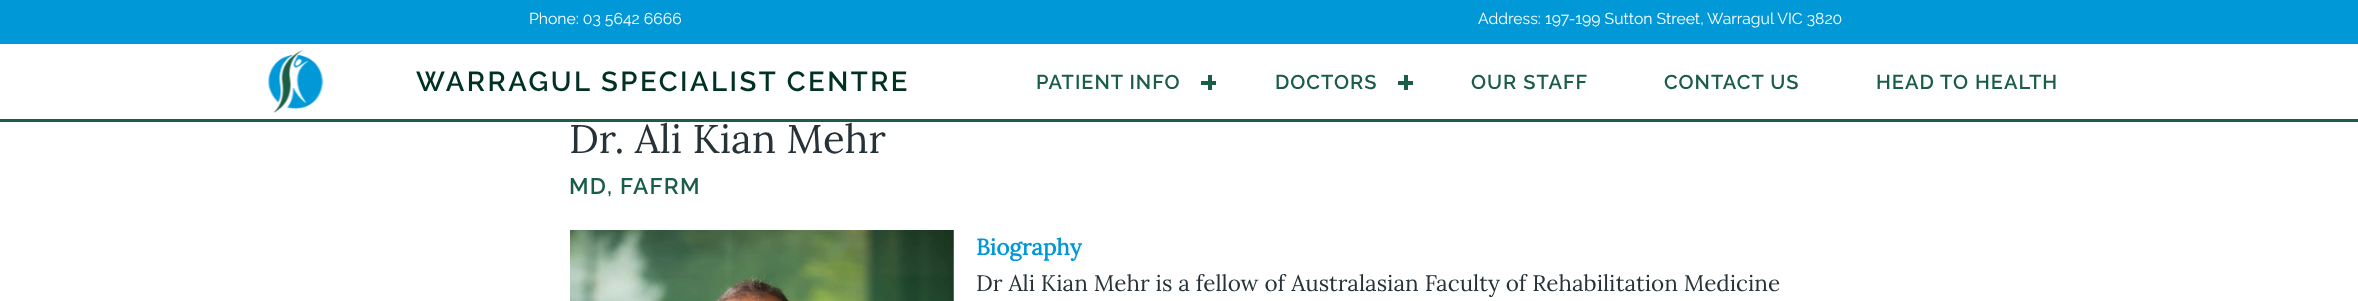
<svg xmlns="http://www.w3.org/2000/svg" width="2358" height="301">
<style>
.a{font:15.75px Raleway;fill:#fff}
.b{font:600 27.5px Raleway;letter-spacing:2.5px;fill:#00331f}
.c{font:600 20px Raleway;letter-spacing:1px;fill:#1b5e46}
.d{font:40px Lora;fill:#263238}
.e{font:600 22.5px Raleway;letter-spacing:1.25px;fill:#1b5e46}
.f{font:bold 22.5px Lora;fill:#0098d7}
.g{font:22.5px Lora;fill:#263238}
</style>
<rect width="100%" height="100%" fill="#fff"/>
<path fill="#0098d7" d="M0 0h2358v44H0z"/>
<path fill="#1b5e46" d="M0 119h2358v3H0z"/>
<image href="1.png" x="268" y="50" width="56" height="63"/>
<path fill="#1b5e46" d="M1201 81h15v4H1201z"/>
<path fill="#1b5e46" d="M1208 75h4v15H1208z"/>
<path fill="#1b5e46" d="M1398 81h15v4H1398z"/>
<path fill="#1b5e46" d="M1404 75h4v15H1404z"/>
<image href="2.png" x="570" y="230" width="384" height="71"/>
<text class="a" x="529" y="24">Phone: 03 5642 6666</text>
<text class="a" x="1478" y="24">Address:</text>
<text class="a" x="1545" y="24">197-199 Sutton Street,</text>
<text class="a" x="1707" y="24">Warragul VIC 3820</text>
<text class="b" x="416" y="91">WARRAGUL SPECIALIST CENTRE</text>
<text class="c" x="1036" y="89">PATIENT INFO</text>
<text class="c" x="1275" y="89">DOCTORS</text>
<text class="c" x="1471" y="89">OUR STAFF</text>
<text class="c" x="1664" y="89">CONTACT US</text>
<text class="c" x="1876" y="89">HEAD TO HEALTH</text>
<text class="d" x="569" y="153">Dr. Ali Kian Mehr</text>
<text class="e" x="569" y="194">MD, FAFRM</text>
<text class="f" x="976" y="255">Biography</text>
<text class="g" x="976" y="291">Dr Ali Kian Mehr is a fellow of Australasian Faculty of Rehabilitation Medicine</text>
</svg>
